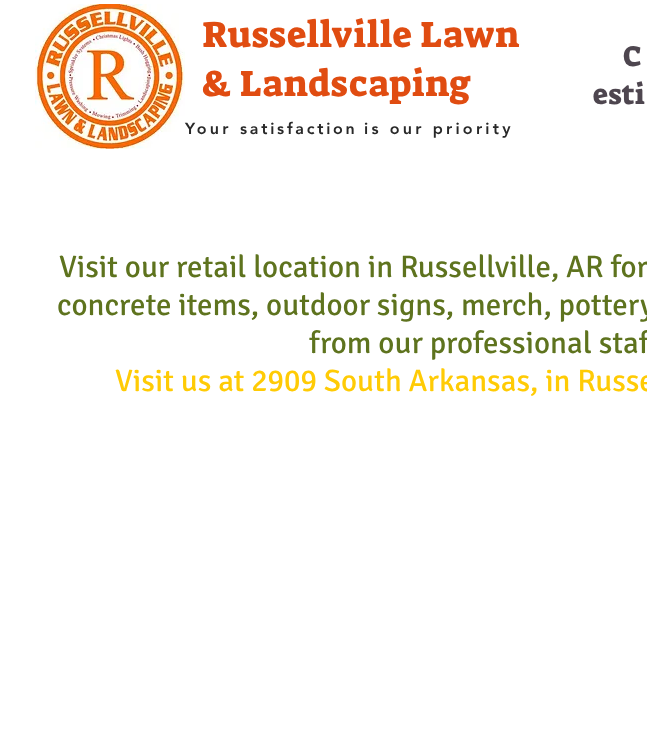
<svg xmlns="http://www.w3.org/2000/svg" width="647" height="732">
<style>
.a{font:37px Suez One;letter-spacing:0.4px;fill:#e04c11}
.b{font:29px Suez One;fill:#4e464f}
.c{font:900 16px 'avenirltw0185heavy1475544';letter-spacing:3.25px;fill:#292929}
.d{font:900 16px 'avenirltw0185heavy1475544';letter-spacing:2.75px;fill:#292929}
.e{font:31px Signika;fill:#5e731e}
.f{font:31px Signika;fill:#ffcb05}
</style>
<rect width="100%" height="100%" fill="#fff"/>
<image href="1.png" x="35" y="4" width="150" height="145"/>
<text class="a" x="202" y="47">Russellville Lawn</text>
<text class="a" x="202" y="96">&amp; Landscaping</text>
<text class="b" x="623" y="66">C</text>
<text class="b" x="593" y="104">esti</text>
<text class="c" x="185" y="134">Your</text>
<text class="d" x="240" y="134">satisfaction</text>
<text class="c" x="364" y="134">is our priority</text>
<text class="e" x="59" y="277">Visit our retail location in Russellville, AR for</text>
<text class="e" x="57" y="315">concrete items, outdoor signs, merch, pottery</text>
<text class="e" x="309" y="353">from our professional staf</text>
<text class="f" x="115" y="391">Visit us at 2909 South Arkansas, in Russe</text>
</svg>
